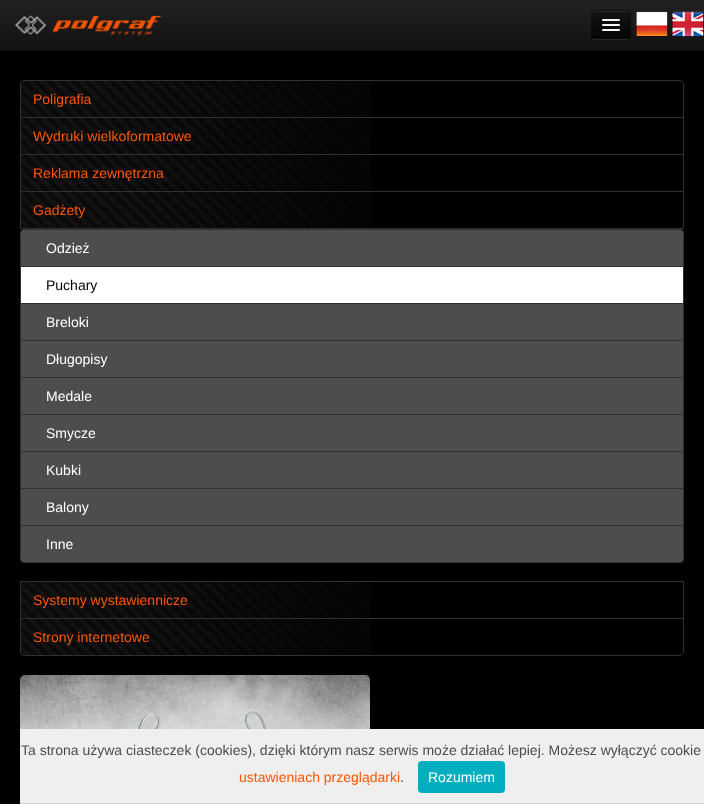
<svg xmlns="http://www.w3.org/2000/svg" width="704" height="804">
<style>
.a{font:14px Liberation Sans;fill:#f50}
.b{font:14px Liberation Sans;fill:#fff}
.c{font:14px Liberation Sans;fill:#000}
.d{font:14px Liberation Sans;fill:#4d4d4d}
</style>
<defs>
<linearGradient id="g1" gradientUnits="userSpaceOnUse" x1="352" y1="0" x2="352" y2="51"><stop offset="0" stop-color="#222"/><stop offset="1" stop-color="#111"/></linearGradient>
<clipPath id="clip1"><rect x="591" y="10" width="40" height="29" rx="4"/></clipPath>
<linearGradient id="g2" gradientUnits="userSpaceOnUse" x1="611" y1="11" x2="611" y2="38"><stop offset="0" stop-color="#151515"/><stop offset="1" stop-color="#040404"/></linearGradient>
</defs>
<rect width="100%" height="100%" fill="#000"/>
<path fill="url(#g1)" d="M0 0h704v51H0z"/>
<image href="1.png" x="15" y="15" width="146" height="20"/>
<path fill="#272727" d="M591 35c0 6 5 5 9 5h22c4 0 9 1 9-5c0 2-2 4-4 4h-32c-2 0-4-2-4-4z"/>
<rect fill="#0e0e0e" x="591" y="10" width="40" height="29" rx="4"/>
<g clip-path="url(#clip1)">
<path fill="url(#g2)" d="M591 11h40v27H591z"/>
</g>
<path fill="#2c2c2c" d="M595 12h32c2 0 3 1 3 3c0-5-4-4-8.5-4h-21c-4.5 0-8.5-1-8.5 4c0-2 1-3 3-3z"/>
<path fill="none" stroke="#00000040" d="M629.5 37.5c-.5 .5-1.5 1-2.5 1h-32c-1 0-2-.5-2.5-1"/>
<path fill="#0b0b0b" d="M602 20.5c-1 2 3.5 1.5 3.5 1.5h11c0 0 4.5 .5 3.5-1.5c-1 1-7.5 .5-9 .5c-1.5 0-8 .5-9-.5z"/>
<rect fill="#f5f5f5" x="602" y="19" width="18" height="2" rx="1"/>
<path fill="#080808" d="M602 25.5c-1 2 3.5 1.5 3.5 1.5h11c0 0 4.5 .5 3.5-1.5c-1 1-7.5 .5-9 .5c-1.5 0-8 .5-9-.5z"/>
<rect fill="#f5f5f5" x="602" y="24" width="18" height="2" rx="1"/>
<rect fill="#f5f5f5" x="602" y="29" width="18" height="2" rx="1"/>
<image href="2.png" x="636" y="11" width="32" height="26"/>
<image href="3.png" x="672" y="11" width="32" height="26"/>
<image href="4.png" x="20" y="80" width="351" height="37"/>
<path fill="none" stroke="#303030" d="M24 80.5h656c2 0 3.5 1.5 3.5 3.5v33.5h-663v-33.5c0-2 1.5-3.5 3.5-3.5z"/>
<image href="5.png" x="21" y="118" width="350" height="36"/>
<path fill="none" stroke="#303030" d="M20.5 117.5h663v37H20.5z"/>
<image href="5.png" x="21" y="155" width="350" height="36"/>
<path fill="none" stroke="#303030" d="M20.5 154.5h663v37H20.5z"/>
<image href="5.png" x="21" y="192" width="350" height="36"/>
<path fill="none" stroke="#303030" d="M20.5 191.5h663v37H20.5z"/>
<path fill="#4d4d4d" stroke="#303030" d="M24 229.5h656c2 0 3.5 1.5 3.5 3.5v33.5h-663v-33.5c0-2 1.5-3.5 3.5-3.5z"/>
<path fill="#fff" stroke="#303030" d="M20.5 266.5h663v37H20.5z"/>
<path fill="#4d4d4d" stroke="#303030" d="M20.5 303.5h663v37H20.5z"/>
<path fill="#4d4d4d" stroke="#303030" d="M20.5 340.5h663v37H20.5z"/>
<path fill="#4d4d4d" stroke="#303030" d="M20.5 377.5h663v37H20.5z"/>
<path fill="#4d4d4d" stroke="#303030" d="M20.5 414.5h663v37H20.5z"/>
<path fill="#4d4d4d" stroke="#303030" d="M20.5 451.5h663v37H20.5z"/>
<path fill="#4d4d4d" stroke="#303030" d="M20.5 488.5h663v37H20.5z"/>
<path fill="#4d4d4d" stroke="#303030" d="M20.5 525.5h663v33.5c0 2-1.5 3.5-3.5 3.5h-656c-2 0-3.5-1.5-3.5-3.5z"/>
<image href="5.png" x="21" y="582" width="350" height="36"/>
<path fill="none" stroke="#303030" d="M20.5 581.5h663v37H20.5z"/>
<image href="6.png" x="20" y="619" width="351" height="37"/>
<path fill="none" stroke="#303030" d="M20.5 618.5h663v33.5c0 2-1.5 3.5-3.5 3.5h-656c-2 0-3.5-1.5-3.5-3.5z"/>
<image href="7.png" x="20" y="675" width="350" height="54"/>
<path fill="#efefef" d="M20 729h684v74H20z"/>
<path fill="#d3d0d0" d="M20 803h684v1H20z"/>
<rect fill="#00afbf" x="418" y="761" width="87" height="32" rx="4"/>
<text class="a" x="33" y="104">Poligrafia</text>
<text class="a" x="33" y="141">Wydruki wielkoformatowe</text>
<text class="a" x="33" y="178">Reklama zewnętrzna</text>
<text class="a" x="33" y="215">Gadżety</text>
<text class="b" x="46" y="253">Odzież</text>
<text class="c" x="46" y="290">Puchary</text>
<text class="b" x="46" y="327">Breloki</text>
<text class="b" x="46" y="364">Długopisy</text>
<text class="b" x="46" y="401">Medale</text>
<text class="b" x="46" y="438">Smycze</text>
<text class="b" x="46" y="475">Kubki</text>
<text class="b" x="46" y="512">Balony</text>
<text class="b" x="46" y="549">Inne</text>
<text class="a" x="33" y="605">Systemy wystawiennicze</text>
<text class="a" x="33" y="642">Strony internetowe</text>
<text class="d" x="21" y="755">Ta strona używa ciasteczek (cookies), dzięki którym nasz serwis może działać lepiej. Możesz wyłączyć cookie</text>
<text class="a" x="239" y="782">ustawieniach przeglądarki</text>
<text class="d" x="400" y="782">.</text>
<text class="b" x="428" y="782">Rozumiem</text>
</svg>
